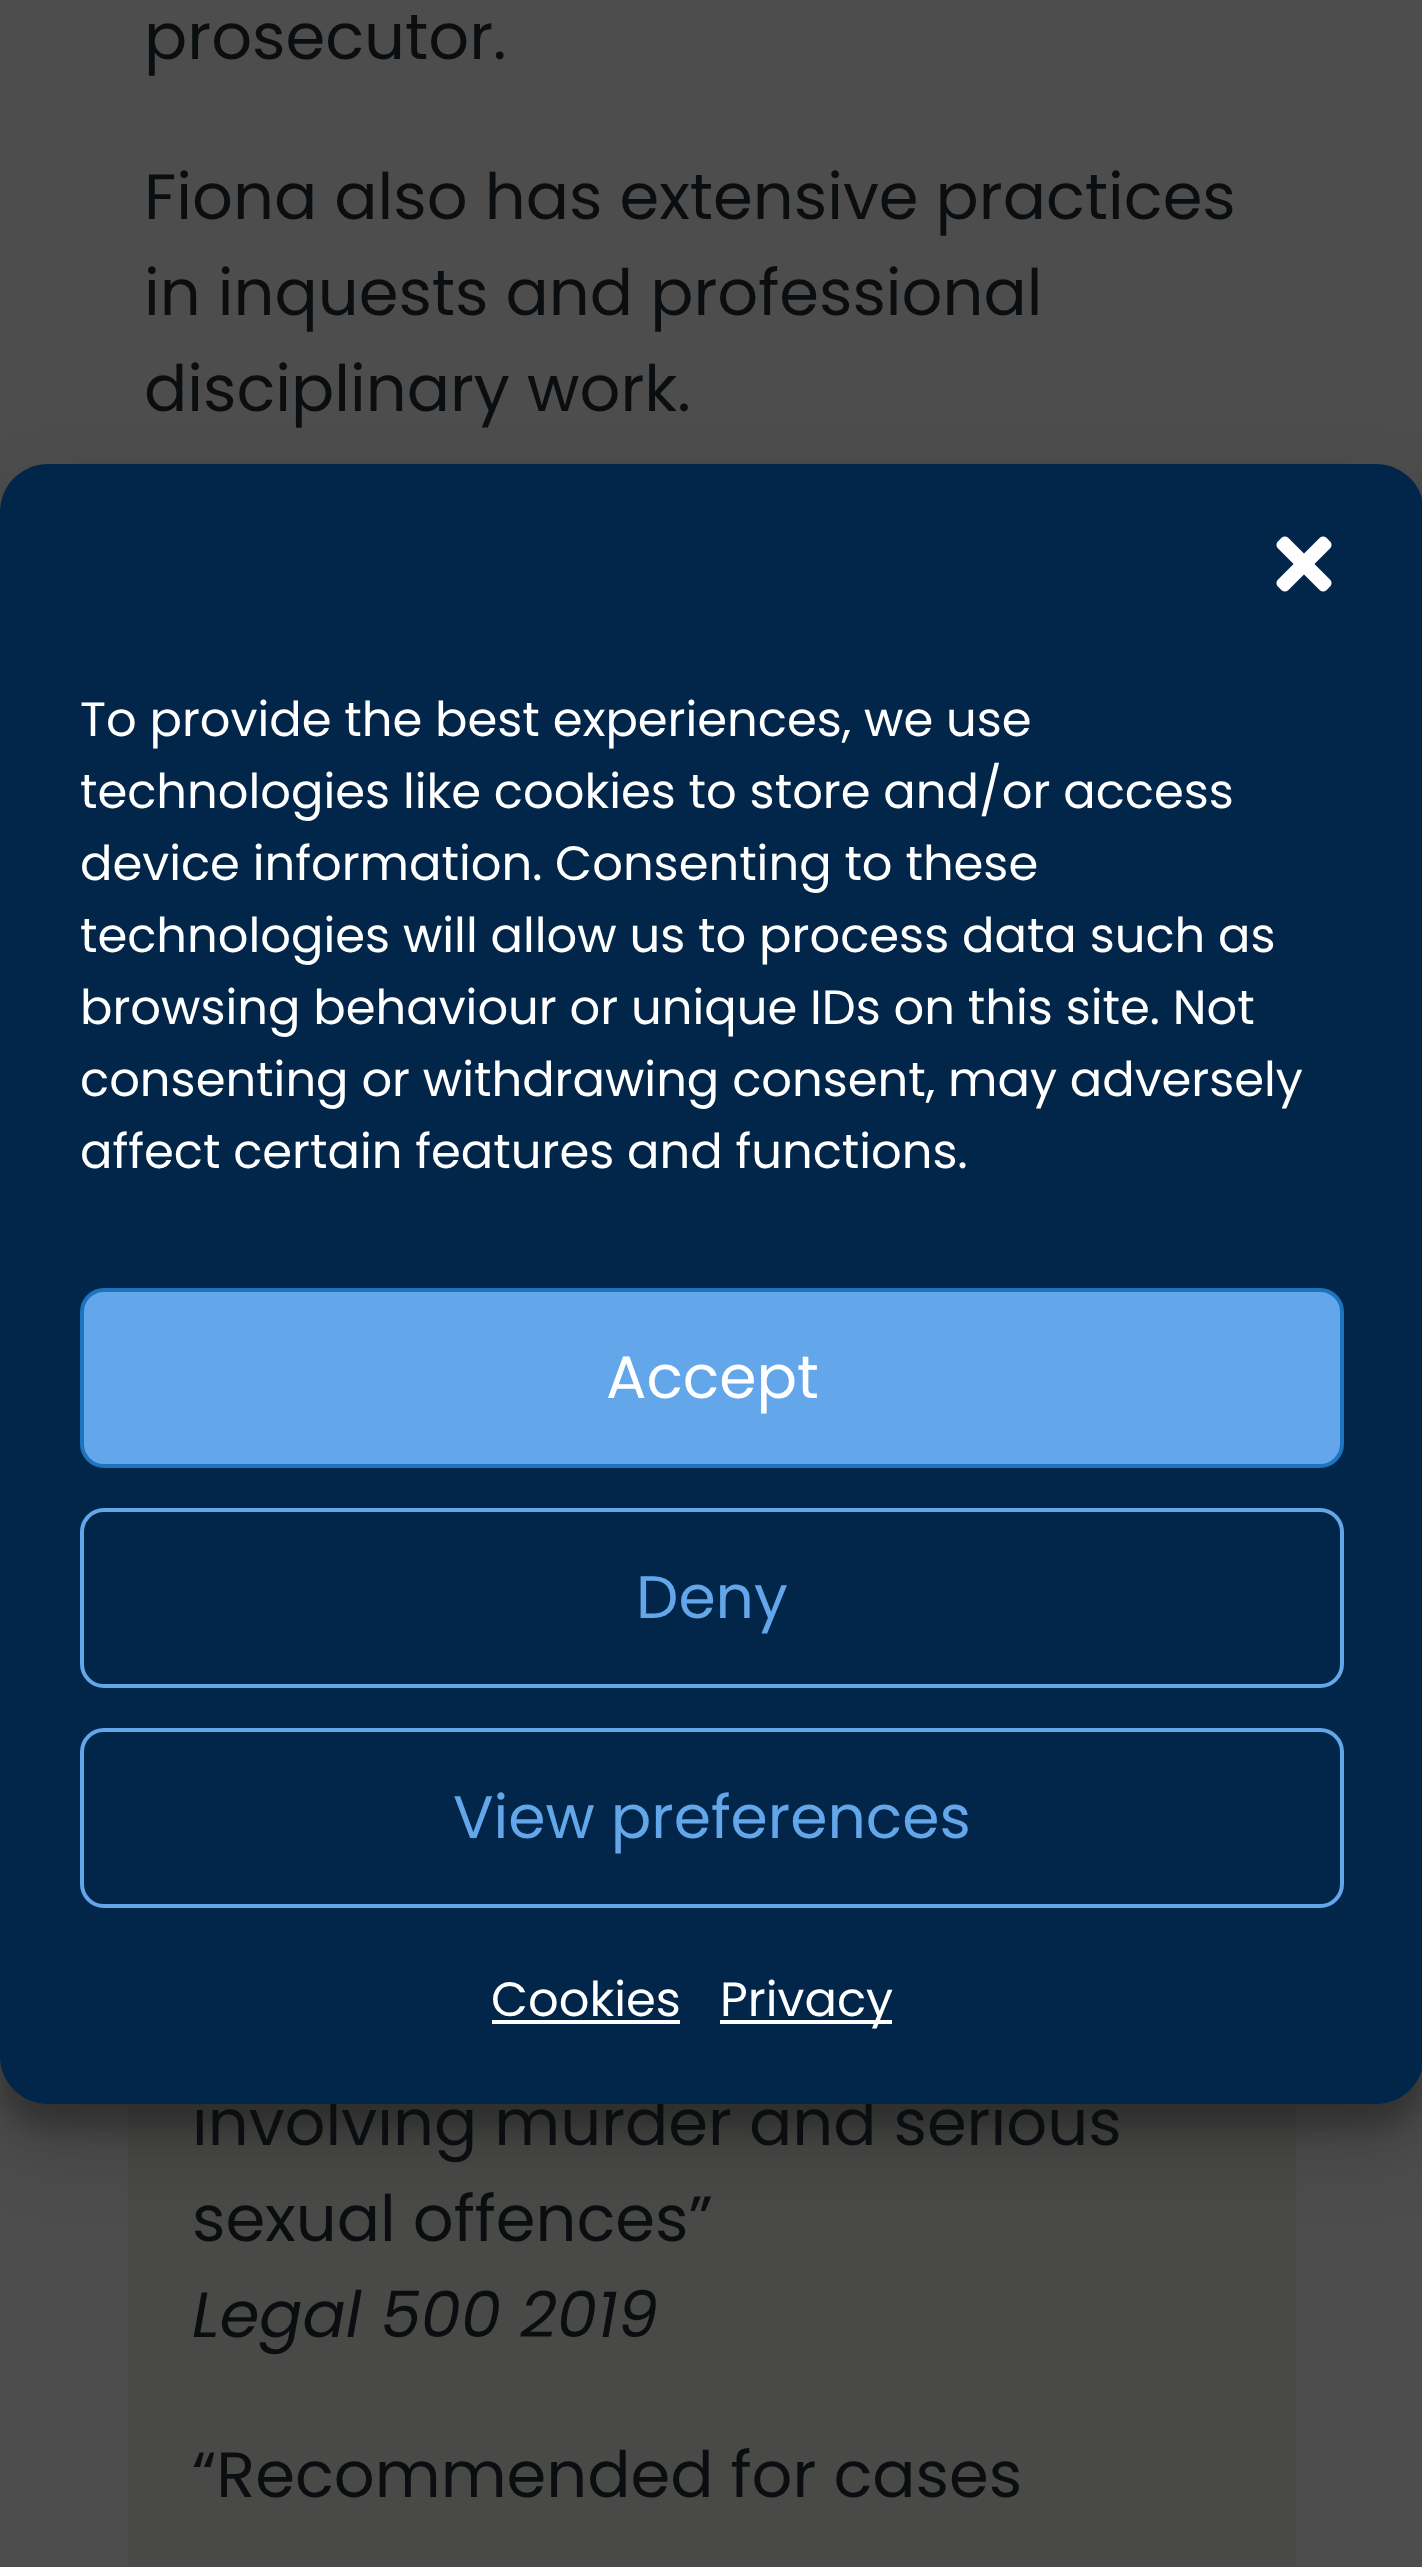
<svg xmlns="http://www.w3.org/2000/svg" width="1422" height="2567">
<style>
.a{font:64px Poppins;fill:#0b0e10}
.b{font:italic 64px Poppins;fill:#0b0e10}
.c{font:48px Poppins;fill:#fff}
.d{font:60px Poppins;fill:#fff}
.e{font:60px Poppins;fill:#63a6e9}
</style>
<rect width="100%" height="100%" fill="#4d4d4d"/>
<path fill="#494948" d="M128 2104h1168v463H128z"/>
<rect fill="#0000003b" filter="blur(12px)" y="488" width="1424" height="1640" rx="48"/>
<rect fill="#00000030" filter="blur(40px)" y="504" width="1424" height="1640" rx="48"/>
<text class="a" x="144" y="59">prosecutor.</text>
<text class="a" x="144" y="219">Fiona also has extensive practices</text>
<text class="a" x="144" y="315">in inquests and professional</text>
<text class="a" x="144" y="411">disciplinary work.</text>
<text class="a" x="192" y="2145">involving murder and serious</text>
<text class="a" x="192" y="2241">sexual offences”</text>
<text class="b" x="192" y="2337">Legal 500 2019</text>
<text class="a" x="192" y="2497">“Recommended for cases</text>
<rect fill="#02264a" y="464" width="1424" height="1640" rx="48"/>
<image href="1.png" x="1276" y="536" width="56" height="56"/>
<text class="c" x="80" y="736">To provide the best experiences, we use</text>
<text class="c" x="80" y="808">technologies like cookies to store and/or access</text>
<text class="c" x="80" y="880">device information. Consenting to these</text>
<text class="c" x="80" y="952">technologies will allow us to process data such as</text>
<text class="c" x="80" y="1024">browsing behaviour or unique IDs on this site. Not</text>
<text class="c" x="80" y="1096">consenting or withdrawing consent, may adversely</text>
<text class="c" x="80" y="1168">affect certain features and functions.</text>
<rect fill="#63a6e9" stroke="#1e73be" stroke-width="4" x="82" y="1290" width="1260" height="176" rx="22"/>
<text class="d" x="606" y="1398">Accept</text>
<rect fill="none" stroke="#63a6e9" stroke-width="4" x="82" y="1510" width="1260" height="176" rx="22"/>
<text class="e" x="636" y="1618">Deny</text>
<rect fill="none" stroke="#63a6e9" stroke-width="4" x="82" y="1730" width="1260" height="176" rx="22"/>
<text class="e" x="453" y="1838">View preferences</text>
<text class="c" x="491" y="2016">Cookies</text>
<path fill="#fff" d="M492 2020h188v4H492z"/>
<path fill="#fff" d="M720 2020h172v4H720z"/>
<text class="c" x="720" y="2016">Privacy</text>
</svg>
